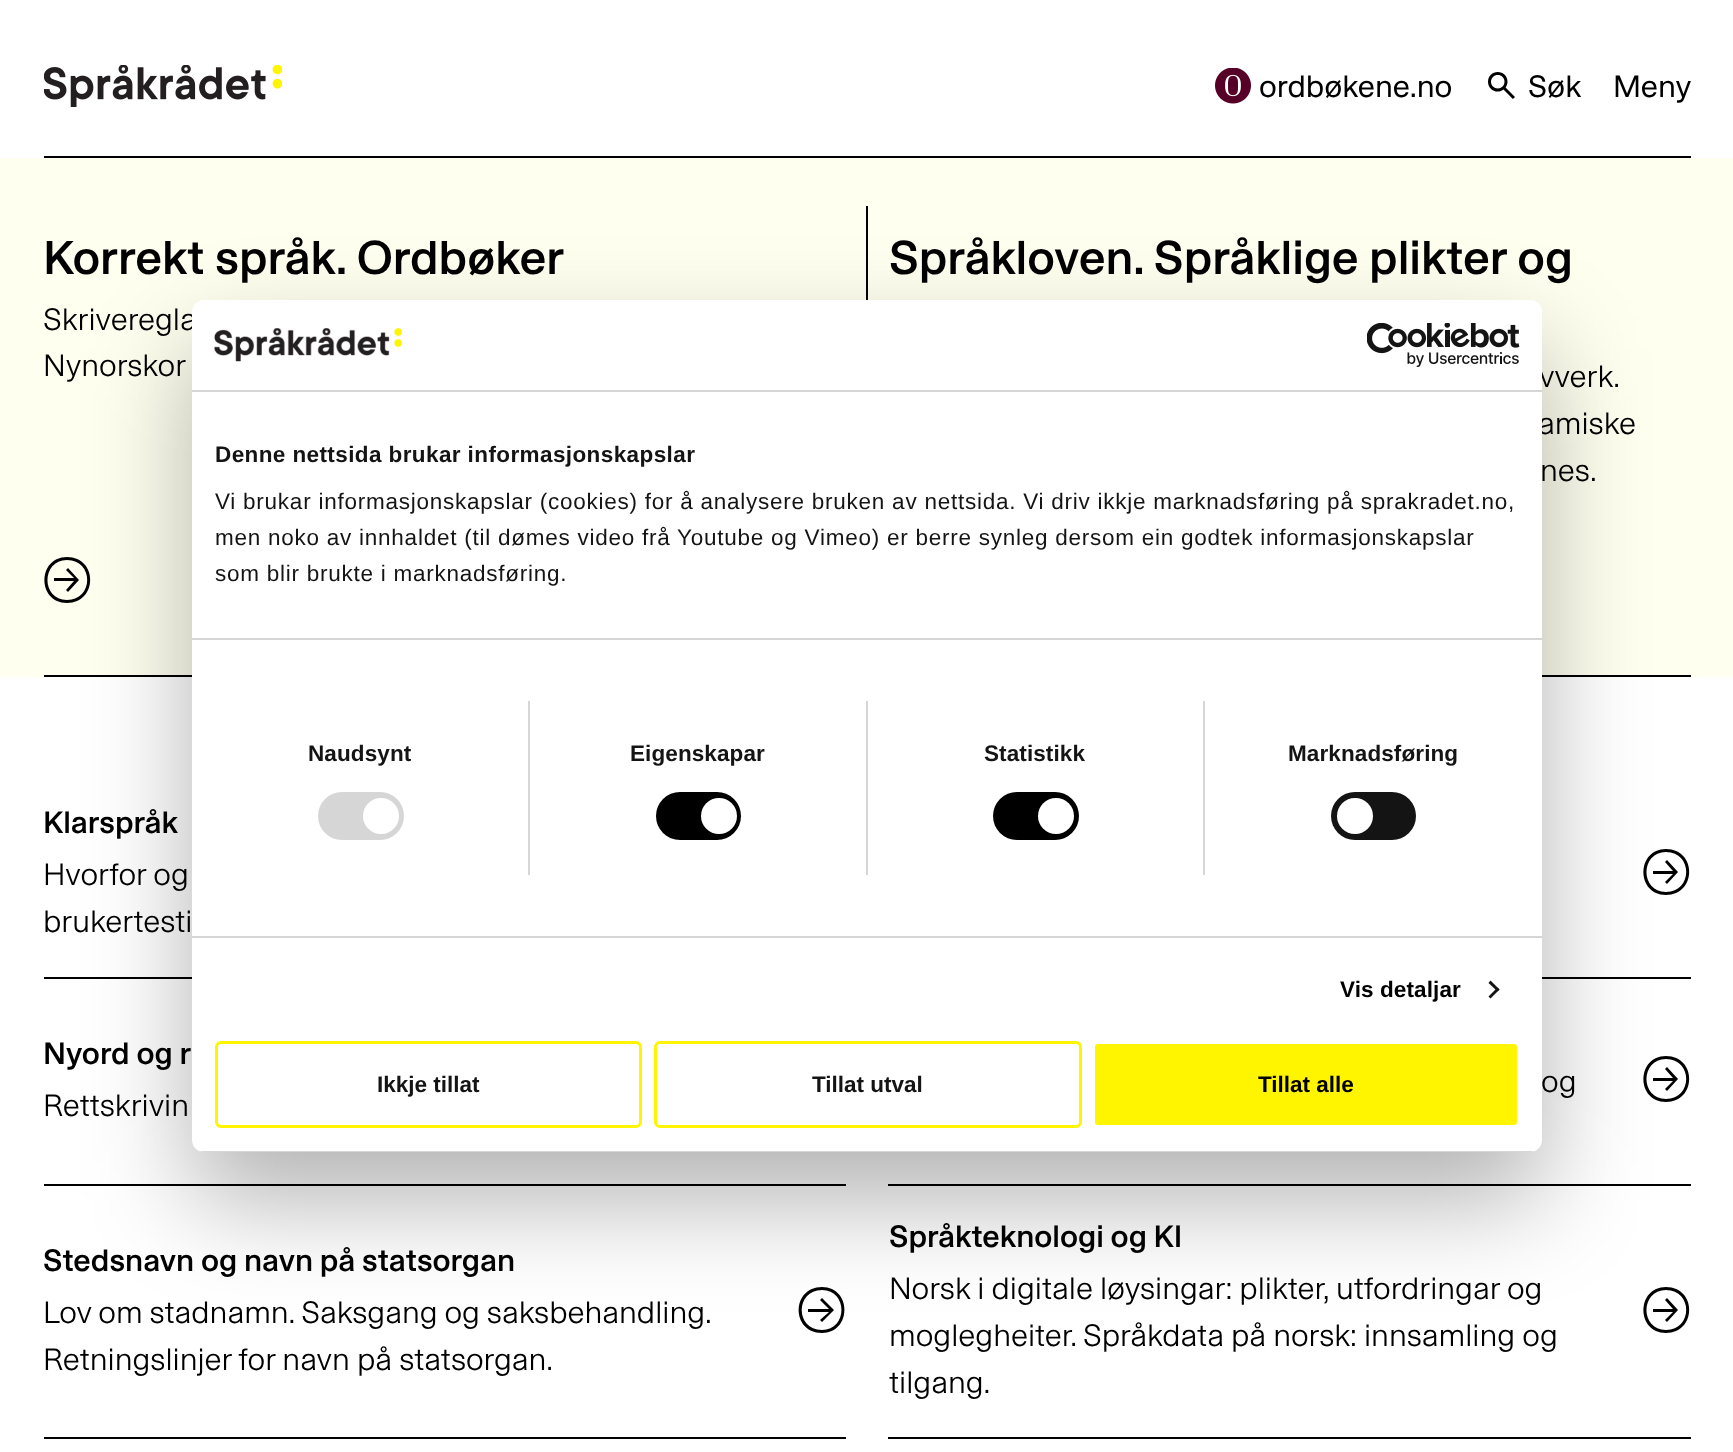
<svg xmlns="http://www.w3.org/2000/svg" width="1733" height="1452">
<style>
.a{font:31.25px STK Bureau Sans;fill:#000}
.b{font:500 48px STK Bureau Sans;fill:#000}
.c{font:300 31.25px STK Bureau Sans;fill:#000}
.d{font:500 31.25px STK Bureau Sans;fill:#000}
.e{font:bold 22.5px Liberation Sans;letter-spacing:0.4px;fill:#141414}
.f{font:22.5px Liberation Sans;letter-spacing:0.75px;fill:#141414}
.g{font:bold 22.5px Liberation Sans;letter-spacing:0.1px;fill:#141414}
.h{font:bold 22.5px Liberation Sans;letter-spacing:0.1px;fill:#000}
.i{font:bold 22.5px Liberation Sans;fill:#141414}
.j{font:bold 22.5px Liberation Sans;fill:#000}
</style>
<defs>
<clipPath id="clip1"><rect x="192" y="300" width="1350" height="852" rx="12"/></clipPath>
</defs>
<rect width="100%" height="100%" fill="#fff"/>
<path fill="#000" d="M44 156h1647v2H44z"/>
<image href="1.png" x="44" y="65" width="238" height="42"/>
<image href="2.png" x="1215" y="68" width="36" height="36"/>
<image href="3.png" x="1488" y="72" width="27" height="27"/>
<path fill="#fffff0" d="M0 158h1733v519H0z"/>
<path fill="#000" d="M44 675h148v2H44z"/>
<path fill="#000" d="M866 206h2v94H866z"/>
<path fill="#000" d="M67 603c-30 0-30-46 0-46c31 0 31 46 0 46zm0-3c27 0 27-40 0-40c-26 0-26 40 0 40zm-13-22h20l-8-8l2-2l11 12l-11 12l-2-2l8-9h-20z"/>
<path fill="#000" d="M1542 675h149v2H1542z"/>
<path fill="#000" d="M44 977h148v2H44z"/>
<path fill="#000" d="M1542 977h149v2H1542z"/>
<path fill="#000" d="M1666 895c-30 0-30-46 0-46c31 0 31 46 0 46zm0-3c27 0 27-40 0-40c-26 0-26 40 0 40zm-13-21h20l-8-9l2-2l11 12l-11 12l-2-2l8-8h-20z"/>
<path fill="#000" d="M44 1184h802v2H44z"/>
<path fill="#000" d="M888 1184h803v2H888z"/>
<path fill="#000" d="M1666 1102c-30 0-30-46 0-46c31 0 31 46 0 46zm0-3c27 0 27-40 0-40c-26 0-26 40 0 40zm-13-21h20l-8-9l2-2l11 12l-11 12l-2-2l8-8h-20z"/>
<path fill="#000" d="M44 1437h802v2H44z"/>
<path fill="#000" d="M822 1333c-31 0-31-46 0-46c30 0 30 46 0 46zm0-3c26 0 26-40 0-40c-27 0-27 40 0 40zm-14-21h21l-9-9l2-2l12 12l-12 12l-2-2l9-8h-21z"/>
<path fill="#000" d="M888 1437h803v2H888z"/>
<path fill="#000" d="M1666 1333c-30 0-30-46 0-46c31 0 31 46 0 46zm0-3c27 0 27-40 0-40c-26 0-26 40 0 40zm-13-21h20l-8-9l2-2l11 12l-11 12l-2-2l8-8h-20z"/>
<rect fill="#0000004d" filter="blur(51px)" x="192" y="348" width="1350" height="852" rx="12"/>
<text class="a" x="1259" y="97">ordbøkene.no</text>
<text class="a" x="1528" y="97">Søk</text>
<text class="a" x="1613" y="97">Meny</text>
<text class="b" x="43" y="274">Korrekt språk. Ordbøker</text>
<text class="c" x="43" y="330">Skriveregla</text>
<text class="c" x="43" y="376">Nynorskor</text>
<text class="b" x="889" y="274">Språkloven. Språklige plikter og</text>
<text class="c" x="1539" y="387">vverk.</text>
<text class="c" x="1538" y="434">amiske</text>
<text class="c" x="1540" y="481">nes.</text>
<text class="d" x="43" y="833">Klarspråk</text>
<text class="c" x="43" y="885">Hvorfor og</text>
<text class="c" x="43" y="932">brukertesti</text>
<text class="d" x="43" y="1064">Nyord og r</text>
<text class="c" x="43" y="1116">Rettskrivin</text>
<text class="c" x="1541" y="1092">og</text>
<text class="d" x="43" y="1271">Stedsnavn og navn på statsorgan</text>
<text class="c" x="43" y="1323" word-spacing="-0.25">Lov om stadnamn. Saksgang og saksbehandling.</text>
<text class="c" x="43" y="1370">Retningslinjer for navn på statsorgan.</text>
<text class="d" x="889" y="1247">Språkteknologi og KI</text>
<text class="c" x="889" y="1299">Norsk i digitale løysingar: plikter, utfordringar og</text>
<text class="c" x="889" y="1346">moglegheiter. Språkdata på norsk: innsamling og</text>
<text class="c" x="889" y="1393">tilgang.</text>
<rect fill="#fff" x="192" y="300" width="1350" height="852" rx="12"/>
<path fill="#d6d6d6" d="M192 390h1350v2H192z"/>
<image href="4.png" x="214" y="328" width="188" height="34"/>
<image href="5.png" x="1367" y="323" width="153" height="44"/>
<path fill="#d6d6d6" d="M192 638h1350v2H192z"/>
<text class="e" x="215" y="462">Denne nettsida brukar informasjonskapslar</text>
<text class="f" x="215" y="509">Vi brukar informasjonskapslar (cookies) for å analysere bruken av nettsida. Vi driv ikkje marknadsføring på sprakradet.no,</text>
<text class="f" x="215" y="545">men noko av innhaldet (til dømes video frå Youtube og Vimeo) er berre synleg dersom ein godtek informasjonskapslar</text>
<text class="f" x="215" y="581">som blir brukte i marknadsføring.</text>
<path fill="#d6d6d6" d="M192 936h1350v2H192z"/>
<path fill="#d6d6d6" d="M528 701h2v174H528z"/>
<text class="g" x="308" y="761">Naudsynt</text>
<rect fill="#d6d6d6" x="318" y="792" width="86" height="48" rx="24"/>
<circle fill="#fff" cx="381" cy="816" r="18"/>
<path fill="#d6d6d6" d="M866 701h2v174H866z"/>
<text class="g" x="630" y="761">Eigenskapar</text>
<rect fill="#000" x="656" y="792" width="85" height="48" rx="24"/>
<circle fill="#fff" cx="719" cy="816" r="18"/>
<path fill="#d6d6d6" d="M1203 701h2v174H1203z"/>
<text class="g" x="984" y="761">Statistikk</text>
<rect fill="#000" x="993" y="792" width="86" height="48" rx="24"/>
<circle fill="#fff" cx="1056" cy="816" r="18"/>
<text class="g" x="1288" y="761">Marknadsføring</text>
<rect fill="#141414" x="1331" y="792" width="85" height="48" rx="24"/>
<circle fill="#fff" cx="1355" cy="816" r="18"/>
<text class="h" x="1340" y="997">Vis detaljar</text>
<path fill="#141414" d="M1490.5 980.5l9 9l-2 2l-9-8.5z"/>
<path fill="#141414" d="M1497.5 987.5l2 2l-9 9l-2-2z"/>
<g clip-path="url(#clip1)">
<path fill="#d6d6d6" d="M192 1151h1350v1H192z"/>
</g>
<rect fill="none" stroke="#fff500" stroke-width="3" x="216.5" y="1042.5" width="424" height="84" rx="4.5"/>
<text class="i" x="377" y="1092">Ikkje tillat</text>
<rect fill="none" stroke="#fff500" stroke-width="3" x="655.5" y="1042.5" width="425" height="84" rx="4.5"/>
<text class="i" x="812" y="1092">Tillat utval</text>
<rect fill="#fff500" stroke="#fff" stroke-width="3" x="1093.5" y="1042.5" width="425" height="84" rx="4.5"/>
<text class="j" x="1258" y="1092">Tillat alle</text>
</svg>
